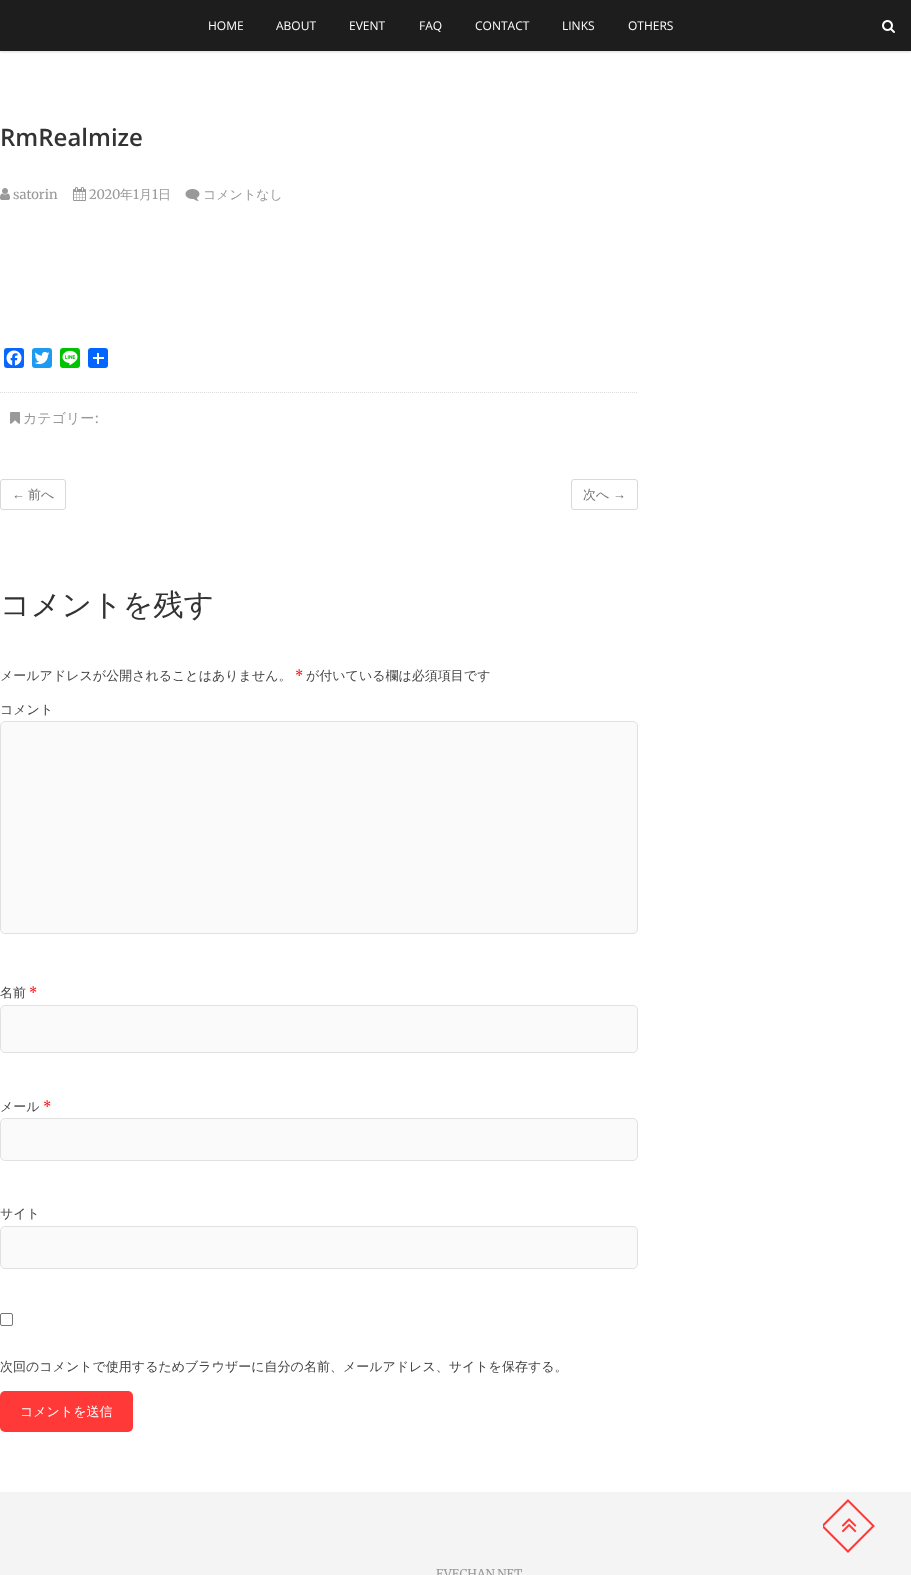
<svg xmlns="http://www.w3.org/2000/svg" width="911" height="1575">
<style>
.a{font:12px Open Sans;fill:#fff}
.b{font:600 24px Open Sans;fill:#333}
.c{font:300 13px Merriweather;fill:#999}
.d{font:500 13px WenQuanYi Zen Hei;fill:#999}
.e{font:500 14px WenQuanYi Zen Hei;fill:#999}
.f{font:300 14px Merriweather;fill:#999}
.g{font:13px Liberation Sans;fill:#747474}
.h{font:500 13px WenQuanYi Zen Hei;fill:#747474}
.i{font:500 30px WenQuanYi Zen Hei;fill:#333}
.j{font:500 13px WenQuanYi Zen Hei;fill:#444}
.k{font:300 13px Merriweather;fill:#f00}
.l{font:500 13px WenQuanYi Zen Hei;fill:#fff}
.m{font:300 12px Merriweather;fill:#999}
</style>
<defs>
<clipPath id="clip1"><path d="M823 1497h58v58H823z"/></clipPath>
</defs>
<rect width="100%" height="100%" fill="#fff"/>
<path fill="#00000026" filter="blur(1px)" d="M0 1h911v51H0z"/>
<path fill="#1d1d1d" d="M0 0h911v51H0z"/>
<image href="1.png" x="882" y="20" width="13" height="13"/>
<image href="2.png" x="0" y="188" width="10" height="12"/>
<image href="3.png" x="73" y="187" width="13" height="14"/>
<image href="4.png" x="185" y="189" width="15" height="12"/>
<rect fill="#0866ff" x="4" y="348" width="20" height="20" rx="3"/>
<image href="5.png" x="6" y="350" width="16" height="16"/>
<rect fill="#1d9bf0" x="32" y="348" width="20" height="20" rx="3"/>
<image href="6.png" x="34" y="351" width="16" height="14"/>
<rect fill="#00c300" x="60" y="348" width="20" height="20" rx="3"/>
<image href="7.png" x="62" y="350" width="16" height="16"/>
<rect fill="#0166ff" x="88" y="348" width="20" height="20" rx="3"/>
<path fill="#fff" d="M97 353h2v11H97z"/>
<path fill="#fff" d="M93 357h11v2H93z"/>
<path fill="none" stroke="#ddd" stroke-dasharray="1 1" d="M0 392.5h638"/>
<image href="8.png" x="10" y="412" width="10" height="12"/>
<rect fill="none" stroke="#d9d9d9" x="0.5" y="479.5" width="65" height="30" rx="2.5"/>
<rect fill="none" stroke="#d9d9d9" x="571.5" y="479.5" width="66" height="30" rx="2.5"/>
<rect fill="#fafafa" stroke="#e1e1e1" x="0.5" y="721.5" width="637" height="212" rx="4.5"/>
<rect fill="#fafafa" stroke="#e1e1e1" x="0.5" y="1005.5" width="637" height="47" rx="4.5"/>
<rect fill="#fafafa" stroke="#e1e1e1" x="0.5" y="1118.5" width="637" height="42" rx="4.5"/>
<rect fill="#fafafa" stroke="#e1e1e1" x="0.5" y="1226.5" width="637" height="42" rx="4.5"/>
<rect fill="none" stroke="#767676" x="0.5" y="1313.5" width="12" height="12" rx="1.5"/>
<rect fill="#ff3838" y="1391" width="133" height="41" rx="5"/>
<path fill="#f4f4f4" d="M0 1492h911v83H0z"/>
<g clip-path="url(#clip1)">
<path fill="none" stroke="#ff3838" stroke-width="2" d="M848 1500.5l25.5 25.5l-25.5 25.5l-25.5-25.5z"/>
</g>
<image href="9.png" x="841" y="1518" width="16" height="15"/>
<text class="a" x="208" y="30">HOME</text>
<text class="a" x="276" y="30">ABOUT</text>
<text class="a" x="349" y="30">EVENT</text>
<text class="a" x="419" y="30">FAQ</text>
<text class="a" x="475" y="30">CONTACT</text>
<text class="a" x="562" y="30">LINKS</text>
<text class="a" x="628" y="30">OTHERS</text>
<text class="b" x="0" y="146">RmRealmize</text>
<text class="c" x="13" y="199">satorin</text>
<text class="c" x="89" y="199">2020</text>
<text class="d" x="120" y="199">年</text>
<text class="c" x="133" y="199">1</text>
<text class="d" x="139" y="199">月</text>
<text class="c" x="152" y="199">1</text>
<text class="d" x="158" y="199">日</text>
<text class="d" x="203" y="199">コメントなし</text>
<text class="e" x="23" y="423">カテゴリー</text>
<text class="f" x="95" y="423">:</text>
<text class="g" x="12" y="499">←</text>
<text class="h" x="28" y="499">前へ</text>
<text class="h" x="583" y="499">次へ</text>
<text class="g" x="613" y="499">→</text>
<text class="i" x="0" y="615">コメントを残す</text>
<text class="j" x="0" y="680">メールアドレスが公開されることはありません。</text>
<text class="k" x="295" y="680">*</text>
<text class="j" x="306" y="680">が付いている欄は必須項目です</text>
<text class="j" x="0" y="714">コメント</text>
<text class="j" x="0" y="997">名前</text>
<text class="k" x="29" y="997">*</text>
<text class="j" x="0" y="1111">メール</text>
<text class="k" x="43" y="1111">*</text>
<text class="j" x="0" y="1218">サイト</text>
<text class="j" x="0" y="1371">次回のコメントで使用するためブラウザーに自分の名前、メールアドレス、サイトを保存する。</text>
<text class="l" x="20" y="1416">コメントを送信</text>
<text class="m" x="436" y="1578">EVECHAN.NET</text>
</svg>
